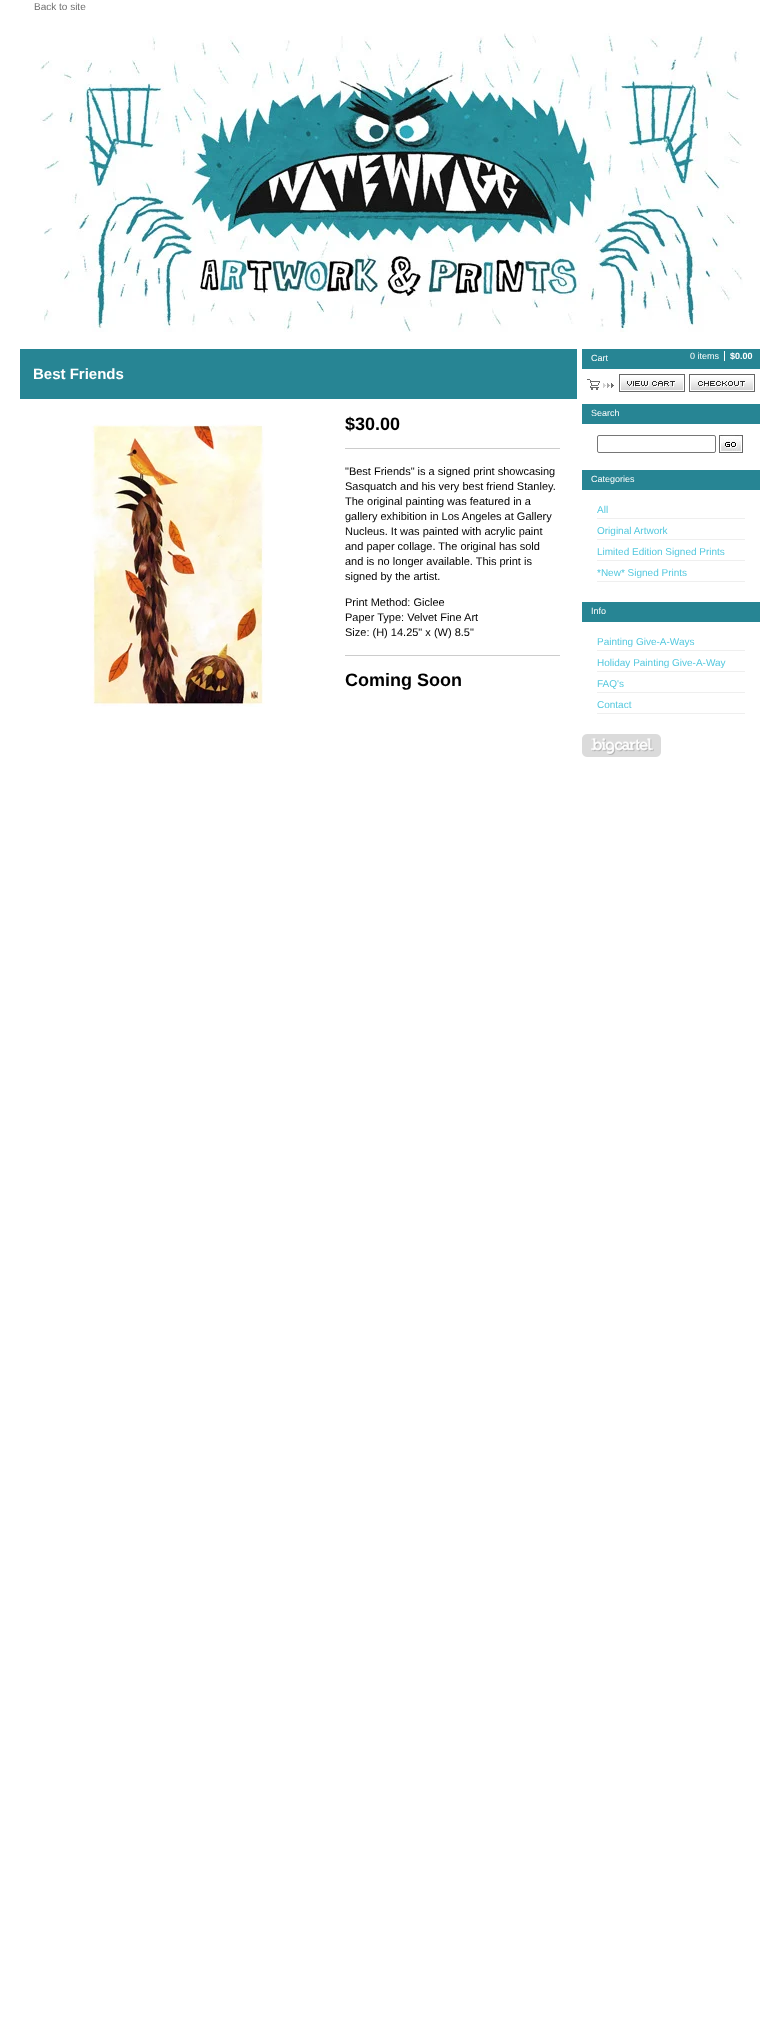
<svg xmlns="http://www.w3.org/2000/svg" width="764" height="2032">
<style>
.a{font:10px Liberation Sans;fill:#6f6f6f}
.b{font:bold 15px Liberation Sans;fill:#fff}
.c{font:bold 18px Liberation Sans;fill:#000}
.d{font:11px Liberation Sans;fill:#000}
.e{font:9px Liberation Sans;fill:#fff}
.f{font:bold 9px Liberation Sans;fill:#fff}
.g{font:10px Liberation Sans;fill:#54c8de}
</style>
<rect width="100%" height="100%" fill="#fff"/>
<image href="1.png" x="40" y="33" width="703" height="299"/>
<path fill="#278594" d="M20 349h557v50H20z"/>
<image href="2.png" x="90" y="424" width="175" height="283"/>
<path fill="#ccc" d="M345 448h215v1H345z"/>
<path fill="#ccc" d="M345 655h215v1H345z"/>
<image href="3.png" x="587" y="379" width="27" height="11"/>
<path fill="#278594" d="M582 349h178v20H582z"/>
<path fill="#fff" d="M724 351h1v10H724z"/>
<image href="4.png" x="619" y="374" width="66" height="18"/>
<image href="5.png" x="689" y="374" width="66" height="18"/>
<path fill="#278594" d="M582 404h178v20H582z"/>
<rect fill="none" stroke="#767676" x="597.5" y="435.5" width="118" height="17" rx="1.5"/>
<image href="6.png" x="719" y="435" width="24" height="18"/>
<path fill="#278594" d="M582 470h178v20H582z"/>
<path fill="#efefef" d="M597 518h148v1H597z"/>
<path fill="#efefef" d="M597 539h148v1H597z"/>
<path fill="#efefef" d="M597 560h148v1H597z"/>
<path fill="#efefef" d="M597 581h148v1H597z"/>
<path fill="#278594" d="M582 602h178v20H582z"/>
<path fill="#efefef" d="M597 650h148v1H597z"/>
<path fill="#efefef" d="M597 671h148v1H597z"/>
<path fill="#efefef" d="M597 692h148v1H597z"/>
<path fill="#efefef" d="M597 713h148v1H597z"/>
<image href="7.png" x="582" y="734" width="79" height="23"/>
<text class="a" x="34" y="10">Back to site</text>
<text class="b" x="33" y="379">Best Friends</text>
<text class="c" x="345" y="430">$30.00</text>
<text class="d" x="345" y="475">"Best Friends" is a signed print showcasing</text>
<text class="d" x="345" y="490">Sasquatch and his very best friend Stanley.</text>
<text class="d" x="345" y="505">The original painting was featured in a</text>
<text class="d" x="345" y="520">gallery exhibition in Los Angeles at Gallery</text>
<text class="d" x="345" y="535">Nucleus. It was painted with acrylic paint</text>
<text class="d" x="345" y="550">and paper collage. The original has sold</text>
<text class="d" x="345" y="565">and is no longer available. This print is</text>
<text class="d" x="345" y="580">signed by the artist.</text>
<text class="d" x="345" y="606">Print Method: Giclee</text>
<text class="d" x="345" y="621">Paper Type: Velvet Fine Art</text>
<text class="d" x="345" y="636">Size: (H) 14.25" x (W) 8.5"</text>
<text class="c" x="345" y="686">Coming Soon</text>
<text class="e" x="591" y="361">Cart</text>
<text class="e" x="690" y="359">0 items</text>
<text class="f" x="730" y="359">$0.00</text>
<text class="e" x="591" y="416">Search</text>
<text class="e" x="591" y="482">Categories</text>
<text class="g" x="597" y="513">All</text>
<text class="g" x="597" y="534">Original Artwork</text>
<text class="g" x="597" y="555">Limited Edition Signed Prints</text>
<text class="g" x="597" y="576">*New* Signed Prints</text>
<text class="e" x="591" y="614">Info</text>
<text class="g" x="597" y="645">Painting Give-A-Ways</text>
<text class="g" x="597" y="666">Holiday Painting Give-A-Way</text>
<text class="g" x="597" y="687">FAQ's</text>
<text class="g" x="597" y="708">Contact</text>
</svg>
